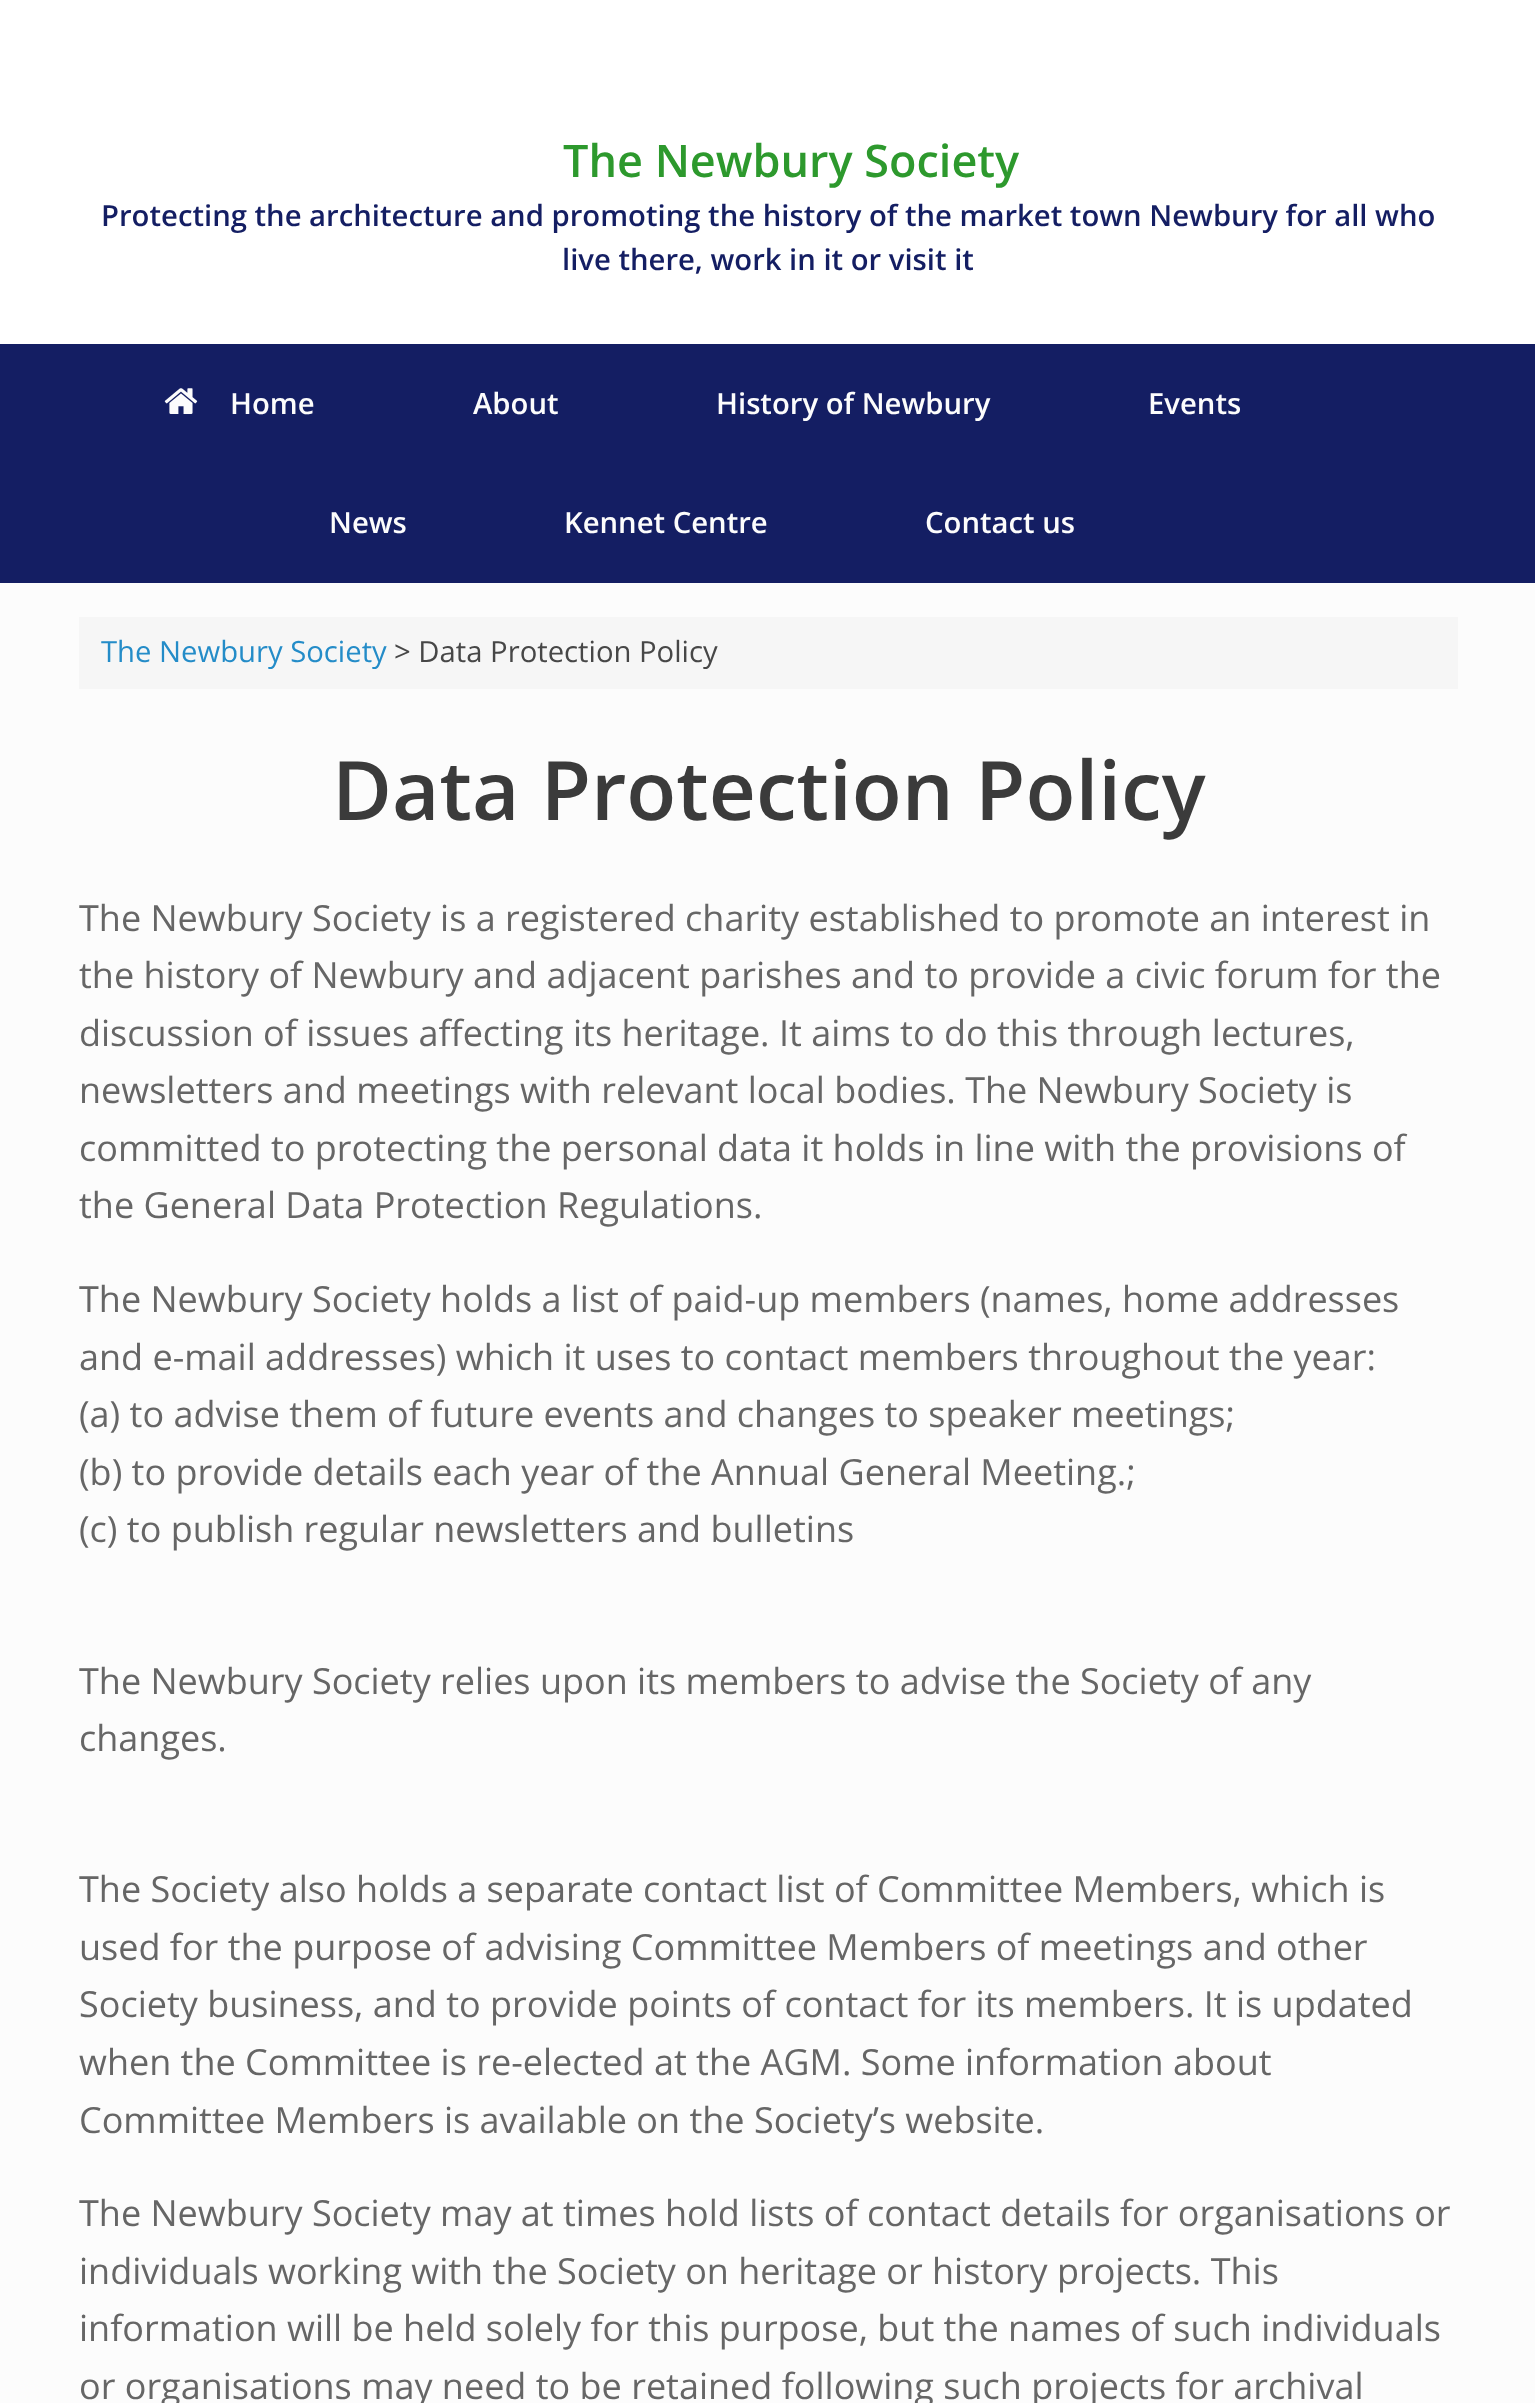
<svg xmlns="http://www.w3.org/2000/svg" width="1535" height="2403">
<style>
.a{font:600 45px Open Sans;fill:#2d992d}
.b{font:600 29.25px Open Sans;fill:#141e63}
.c{font:600 29.25px Open Sans;fill:#fcfcfc}
.d{font:29.25px Open Sans;fill:#248cc8}
.e{font:29.25px Open Sans;fill:#474747}
.f{font:600 81.9px Open Sans;fill:#3b3b3b}
.g{font:36px Open Sans;fill:#666}
</style>
<rect width="100%" height="100%" fill="#fff"/>
<path fill="#141e63" d="M0 344h1535v239H0z"/>
<image href="1.png" x="164" y="388" width="34" height="26"/>
<path fill="#fcfcfc" d="M0 583h1535v1820H0z"/>
<path fill="#f6f6f6" d="M79 617h1379v72H79z"/>
<text class="a" x="563" y="177">The Newbury Society</text>
<text class="b" x="101" y="226">Protecting the architecture and promoting the history of the market town Newbury for all who</text>
<text class="b" x="562" y="270">live there, work in it or visit it</text>
<text class="c" x="230" y="414">Home</text>
<text class="c" x="473" y="414">About</text>
<text class="c" x="716" y="414">History of Newbury</text>
<text class="c" x="1148" y="414">Events</text>
<text class="c" x="329" y="533">News</text>
<text class="c" x="564" y="533">Kennet Centre</text>
<text class="c" x="925" y="533">Contact us</text>
<text class="d" x="101" y="662">The Newbury Society</text>
<text class="e" x="394" y="662">&gt; Data Protection Policy</text>
<text class="f" x="332" y="820">Data Protection Policy</text>
<text class="g" x="79" y="931">The Newbury Society is a registered charity established to promote an interest in</text>
<text class="g" x="79" y="988">the history of Newbury and adjacent parishes and to provide a civic forum for the</text>
<text class="g" x="79" y="1046">discussion of issues affecting its heritage. It aims to do this through lectures,</text>
<text class="g" x="79" y="1103">newsletters and meetings with relevant local bodies. The Newbury Society is</text>
<text class="g" x="79" y="1161">committed to protecting the personal data it holds in line with the provisions of</text>
<text class="g" x="79" y="1218">the General Data Protection Regulations.</text>
<text class="g" x="79" y="1312">The Newbury Society holds a list of paid-up members (names, home addresses</text>
<text class="g" x="79" y="1370">and e-mail addresses) which it uses to contact members throughout the year:</text>
<text class="g" x="79" y="1427">(a) to advise them of future events and changes to speaker meetings;</text>
<text class="g" x="79" y="1485">(b) to provide details each year of the Annual General Meeting.;</text>
<text class="g" x="79" y="1542">(c) to publish regular newsletters and bulletins</text>
<text class="g" x="79" y="1694">The Newbury Society relies upon its members to advise the Society of any</text>
<text class="g" x="79" y="1751">changes.</text>
<text class="g" x="79" y="1902">The Society also holds a separate contact list of Committee Members, which is</text>
<text class="g" x="79" y="1960">used for the purpose of advising Committee Members of meetings and other</text>
<text class="g" x="79" y="2017">Society business, and to provide points of contact for its members. It is updated</text>
<text class="g" x="79" y="2075">when the Committee is re-elected at the AGM. Some information about</text>
<text class="g" x="79" y="2133">Committee Members is available on the Society’s website.</text>
<text class="g" x="79" y="2226">The Newbury Society may at times hold lists of contact details for organisations or</text>
<text class="g" x="79" y="2284">individuals working with the Society on heritage or history projects. This</text>
<text class="g" x="79" y="2341">information will be held solely for this purpose, but the names of such individuals</text>
<text class="g" x="79" y="2399">or organisations may need to be retained following such projects for archival</text>
</svg>
